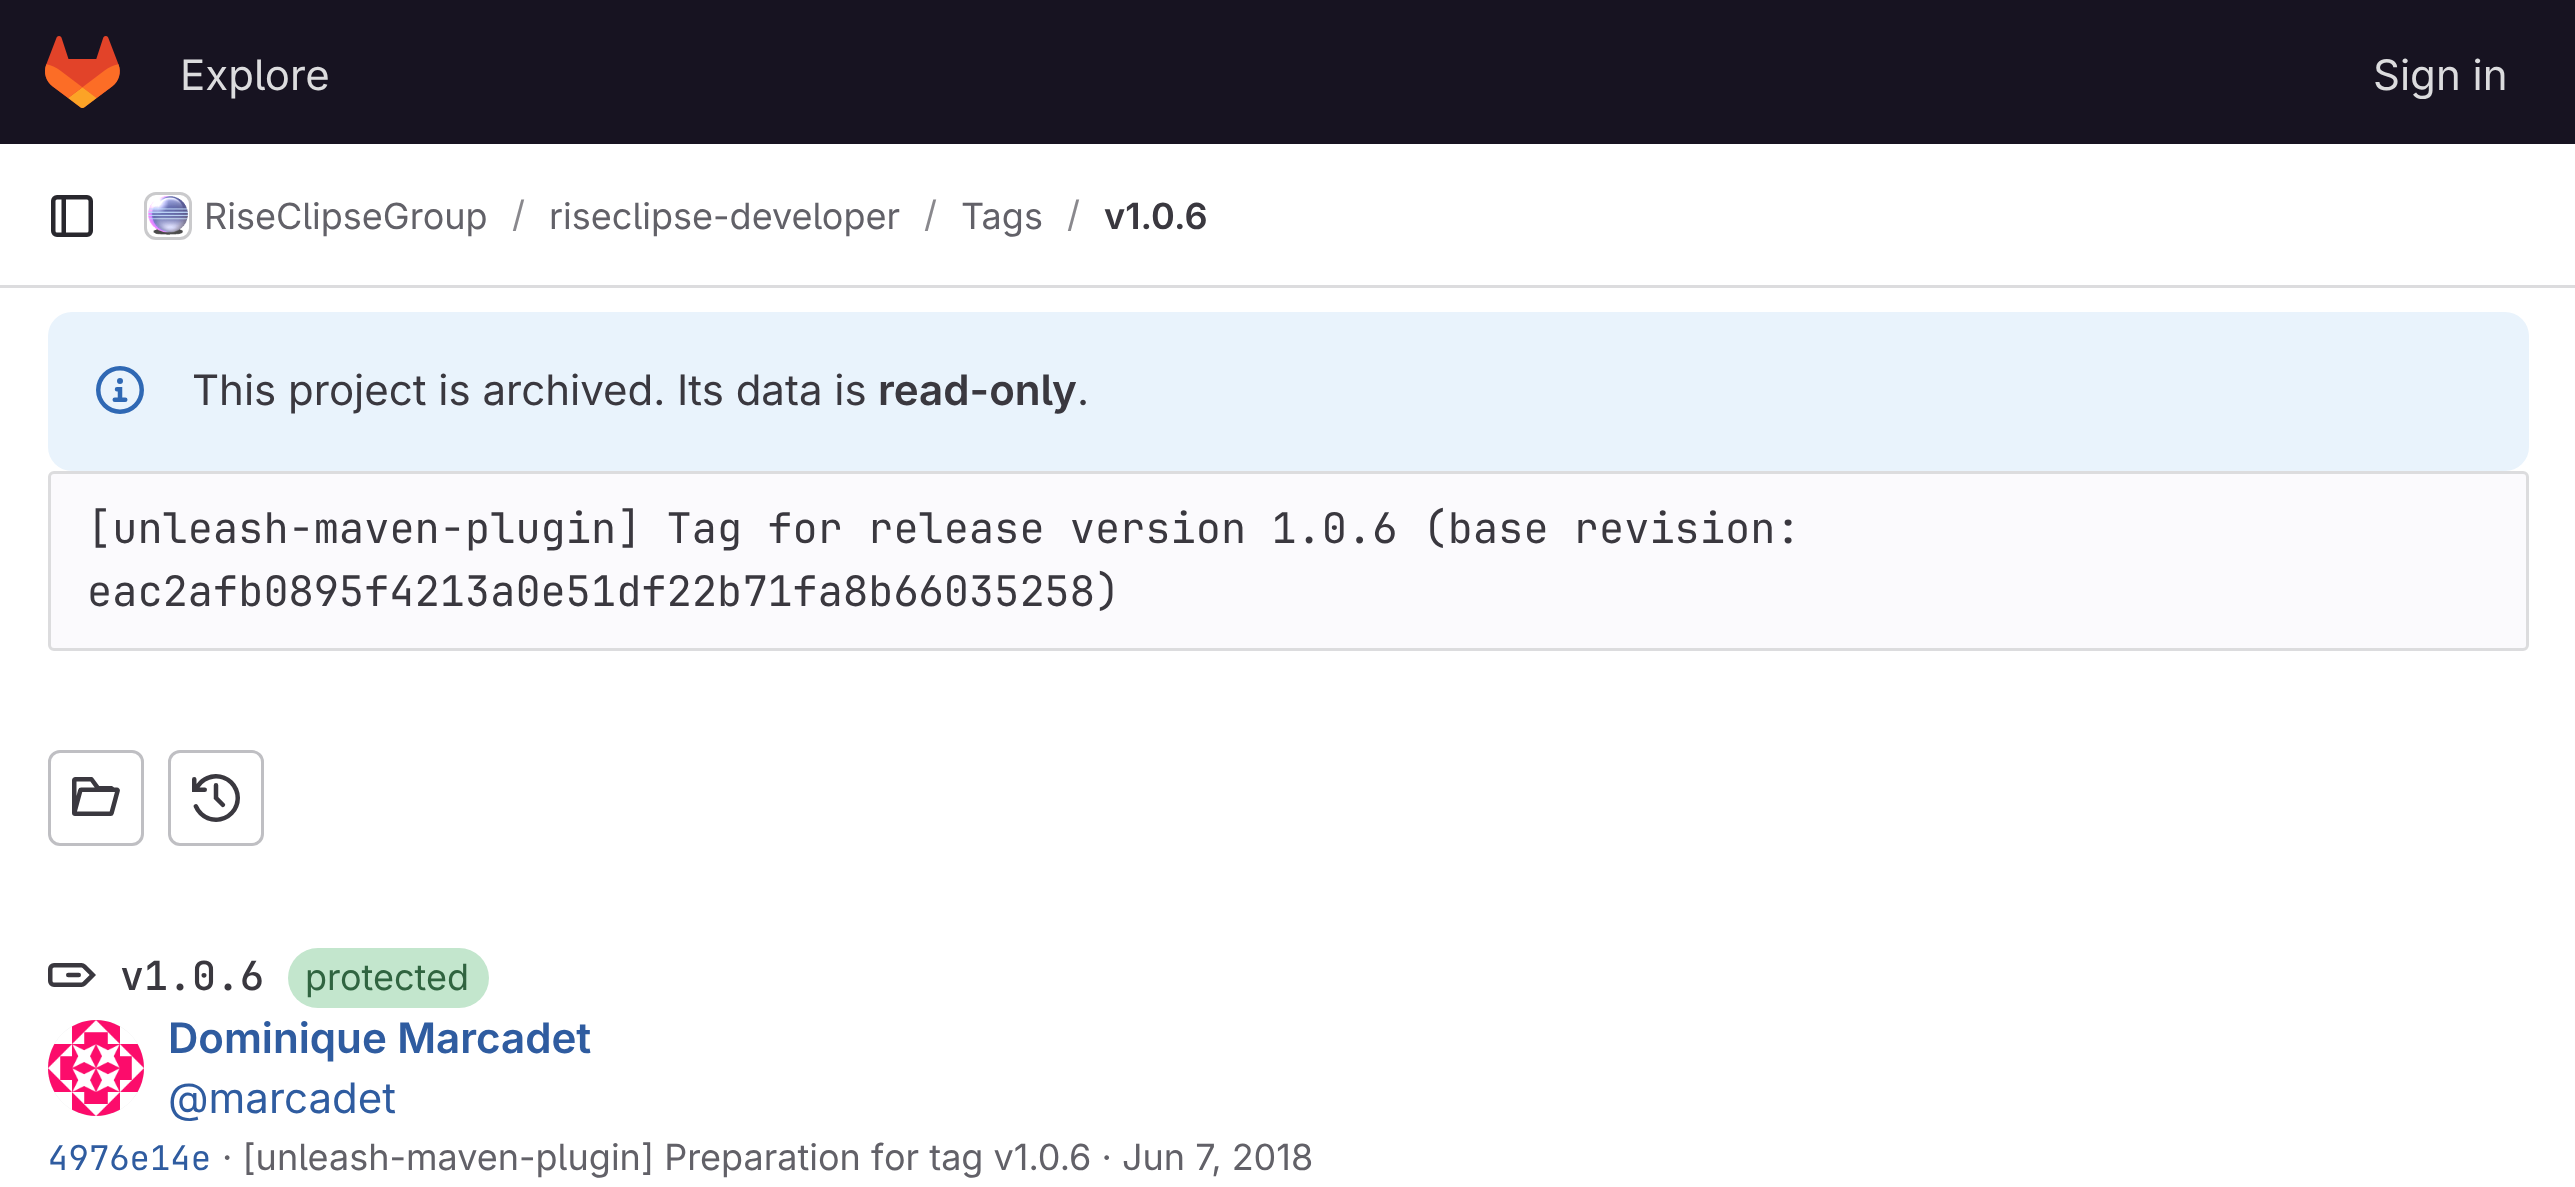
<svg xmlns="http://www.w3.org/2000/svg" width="2575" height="1187">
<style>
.a{font:42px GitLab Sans;fill:#dcdcde}
.b{font:36px GitLab Sans;fill:#626168}
.c{font:36px GitLab Sans;fill:#89888d}
.d{font:600 36px GitLab Sans;fill:#3a383f}
.e{font:42px GitLab Sans;fill:#3a383f}
.f{font:600 42px GitLab Sans;fill:#3a383f}
.g{font:42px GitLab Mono;fill:#3a383f}
.h{font:600 40px GitLab Mono;fill:#3a383f}
.i{font:36px GitLab Sans;fill:#306440}
.j{font:600 42px GitLab Sans;fill:#2f5ca0}
.k{font:42px GitLab Sans;fill:#2f5ca0}
.l{font:34px GitLab Mono;fill:#2f5ca0}
</style>
<rect width="100%" height="100%" fill="#fff"/>
<path fill="#171321" d="M0 0h2575v144H0z"/>
<image href="1.png" x="45" y="36" width="75" height="72"/>
<path fill="#dcdcde" d="M0 285h2575v3H0z"/>
<image href="2.png" x="51" y="195" width="42" height="42"/>
<rect fill="none" stroke="#dcdcde" stroke-width="3" x="145.5" y="193.5" width="45" height="45" rx="10.5"/>
<image href="3.png" x="148" y="196" width="40" height="39"/>
<rect fill="none" stroke="#05050614" stroke-width="3" x="145.5" y="193.5" width="45" height="45" rx="10.5"/>
<rect fill="#e9f3fc" x="48" y="312" width="2481" height="159" rx="24"/>
<image href="4.png" x="96" y="366" width="48" height="48"/>
<rect fill="#fbfafd" stroke="#dcdcde" stroke-width="3" x="49.5" y="472.5" width="2478" height="177" rx="4.5"/>
<rect fill="none" stroke="#bfbfc3" stroke-width="3" x="49.5" y="751.5" width="93" height="93" rx="10.5"/>
<image href="5.png" x="72" y="777" width="48" height="39"/>
<rect fill="none" stroke="#bfbfc3" stroke-width="3" x="169.5" y="751.5" width="93" height="93" rx="10.5"/>
<image href="6.png" x="192" y="774" width="48" height="48"/>
<image href="7.png" x="48" y="963" width="48" height="24"/>
<rect fill="#c3e6cd" x="288" y="948" width="201" height="60" rx="30"/>
<circle fill="none" stroke="#e7e7e9" stroke-width="3" cx="96" cy="1068" r="46.5"/>
<image href="8.png" x="48" y="1020" width="96" height="96"/>
<text class="a" x="180" y="90">Explore</text>
<text class="a" x="2373" y="90">Sign in</text>
<text class="b" x="204" y="229">RiseClipseGroup</text>
<text class="c" x="512" y="227">/</text>
<text class="b" x="549" y="229">riseclipse-developer</text>
<text class="c" x="924" y="227">/</text>
<text class="b" x="961" y="229">Tags</text>
<text class="c" x="1067" y="227">/</text>
<text class="d" x="1104" y="229">v1.0.6</text>
<text class="e" x="192" y="405">This project is archived. Its data is</text>
<text class="f" x="878" y="405">read-only</text>
<text class="e" x="1077" y="405">.</text>
<text class="g" x="87" y="543">[unleash-maven-plugin] Tag for release version 1.0.6 (base revision:</text>
<text class="g" x="87" y="606">eac2afb0895f4213a0e51df22b71fa8b66035258)</text>
<text class="h" x="120" y="990">v1.0.6</text>
<text class="i" x="305" y="990">protected</text>
<text class="j" x="168" y="1053">Dominique Marcadet</text>
<text class="k" x="168" y="1113">@marcadet</text>
<text class="l" x="48" y="1170">4976e14e</text>
<text class="b" x="222" y="1170">· [unleash-maven-plugin] Preparation for tag v1.0.6 · Jun 7, 2018</text>
</svg>
